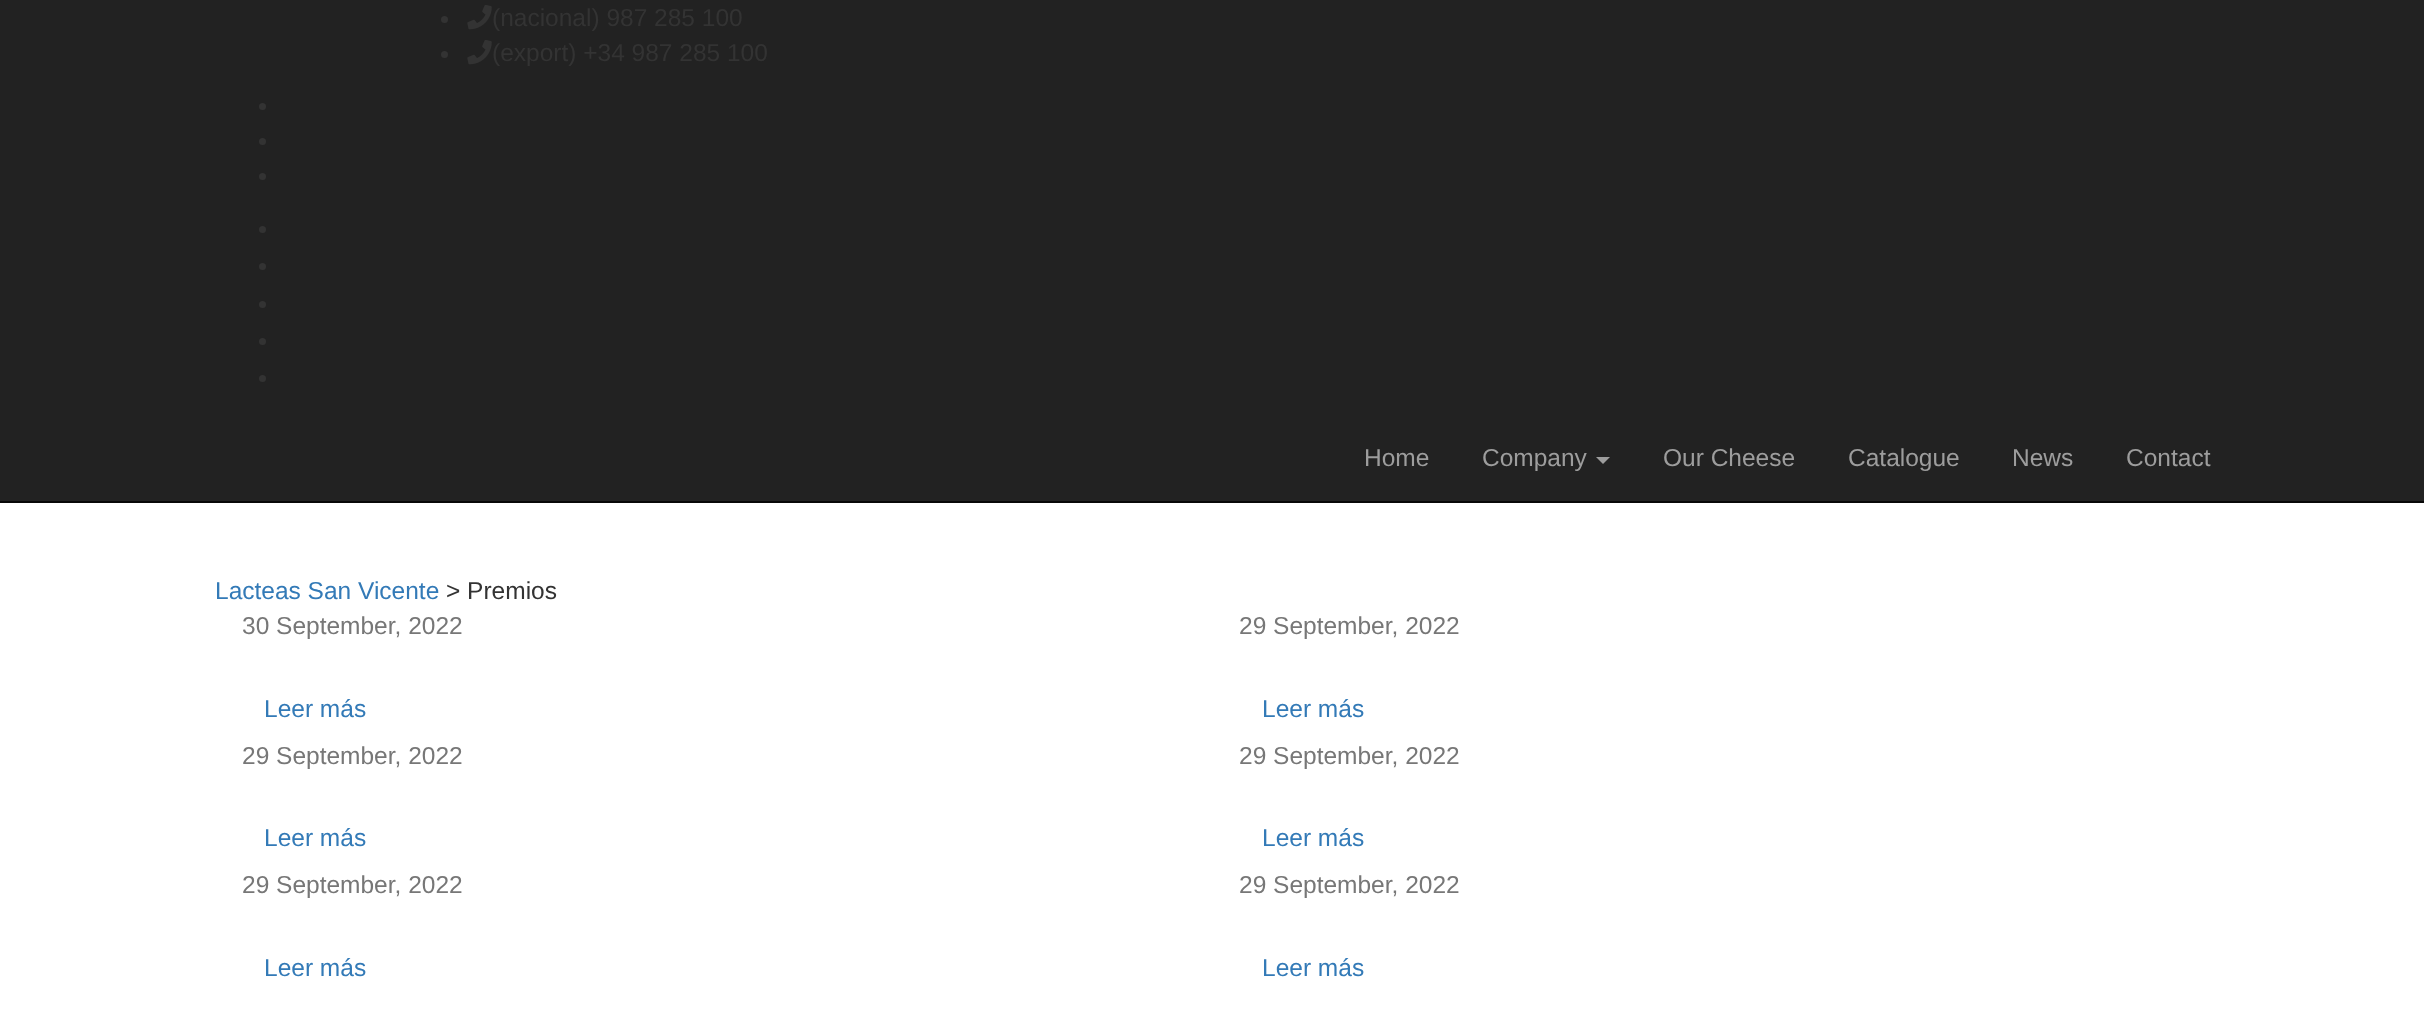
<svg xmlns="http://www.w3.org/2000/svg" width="2424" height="1010">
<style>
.a{font:24.5px Liberation Sans;fill:#333}
.b{font:24.5px Liberation Sans;fill:#9d9d9d}
.c{font:24.5px Liberation Sans;fill:#337ab7}
.d{font:24.5px Liberation Sans;fill:#777}
</style>
<rect width="100%" height="100%" fill="#fff"/>
<path fill="#222" d="M0 0h2424v501H0z"/>
<path fill="#080808" d="M0 501h2424v2H0z"/>
<circle fill="#333" cx="444.5" cy="19.5" r="3.5"/>
<image href="1.png" x="467" y="5" width="25" height="25"/>
<circle fill="#333" cx="444.5" cy="54.5" r="3.5"/>
<image href="1.png" x="467" y="40" width="25" height="25"/>
<circle fill="#333" cx="262.5" cy="106.5" r="3.5"/>
<circle fill="#333" cx="262.5" cy="141.5" r="3.5"/>
<circle fill="#333" cx="262.5" cy="176.5" r="3.5"/>
<circle fill="#333" cx="262.5" cy="229.5" r="3.5"/>
<circle fill="#333" cx="262.5" cy="266.5" r="3.5"/>
<circle fill="#333" cx="262.5" cy="304.5" r="3.5"/>
<circle fill="#333" cx="262.5" cy="341.5" r="3.5"/>
<circle fill="#333" cx="262.5" cy="378.5" r="3.5"/>
<path fill="#9d9d9d" d="M1596 457h14l-7 7z"/>
<text class="a" x="492" y="26">(nacional) 987 285 100</text>
<text class="a" x="492" y="61">(export) +34 987 285 100</text>
<text class="b" x="1364" y="466">Home</text>
<text class="b" x="1482" y="466">Company</text>
<text class="b" x="1663" y="466">Our Cheese</text>
<text class="b" x="1848" y="466">Catalogue</text>
<text class="b" x="2012" y="466">News</text>
<text class="b" x="2126" y="466">Contact</text>
<text class="c" x="215" y="599">Lacteas San Vicente</text>
<text class="a" x="446" y="599">&gt; Premios</text>
<text class="d" x="242" y="634">30 September, 2022</text>
<text class="c" x="264" y="717">Leer más</text>
<text class="d" x="1239" y="634">29 September, 2022</text>
<text class="c" x="1262" y="717">Leer más</text>
<text class="d" x="242" y="764">29 September, 2022</text>
<text class="c" x="264" y="846">Leer más</text>
<text class="d" x="1239" y="764">29 September, 2022</text>
<text class="c" x="1262" y="846">Leer más</text>
<text class="d" x="242" y="893">29 September, 2022</text>
<text class="c" x="264" y="976">Leer más</text>
<text class="d" x="1239" y="893">29 September, 2022</text>
<text class="c" x="1262" y="976">Leer más</text>
</svg>
